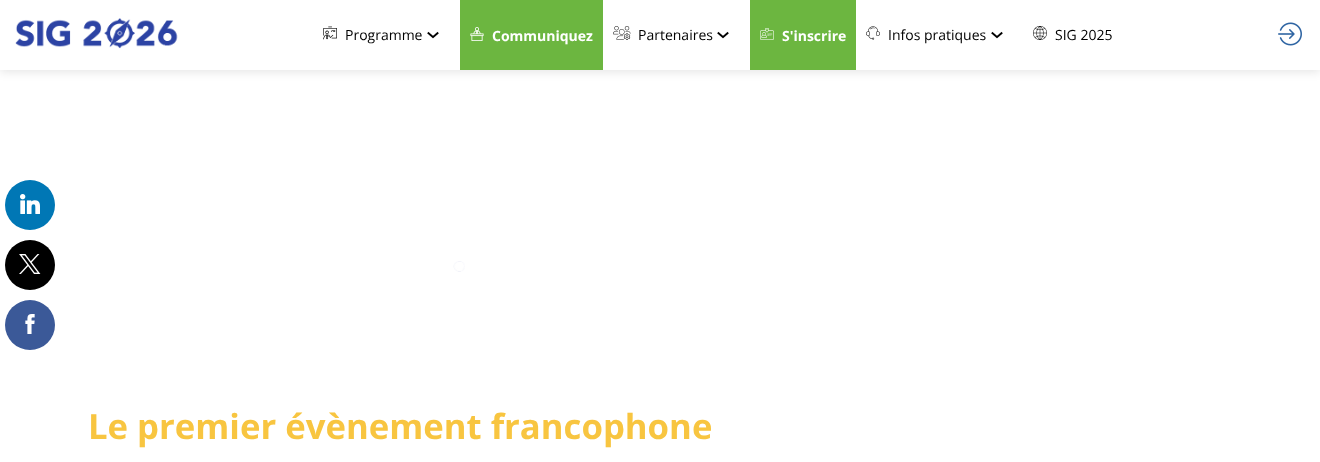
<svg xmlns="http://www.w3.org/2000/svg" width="1320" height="462">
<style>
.a{font:14px Open Sans;fill:#000}
.b{font:bold 14px Open Sans;fill:#fff}
.c{font:bold 34.7px Open Sans;fill:#f8c540}
</style>
<rect width="100%" height="100%" fill="#fff"/>
<path fill="#0000001a" filter="blur(5px)" d="M0 2h1320v70H0z"/>
<path fill="#fff" d="M0 0h1320v70H0z"/>
<image href="1.png" x="15" y="18" width="163" height="31"/>
<image href="2.png" x="323" y="26" width="14" height="14"/>
<image href="3.png" x="427" y="31" width="12" height="8"/>
<path fill="#6cb640" d="M460 0h143v70H460z"/>
<image href="4.png" x="470" y="27" width="14" height="14"/>
<image href="5.png" x="613" y="26" width="18" height="14"/>
<image href="3.png" x="717" y="31" width="12" height="8"/>
<path fill="#6cb640" d="M750 0h106v70H750z"/>
<image href="6.png" x="760" y="28" width="14" height="12"/>
<image href="7.png" x="866" y="26" width="14" height="14"/>
<image href="3.png" x="991" y="31" width="12" height="8"/>
<image href="8.png" x="1033" y="26" width="14" height="14"/>
<image href="9.png" x="1278" y="22" width="24" height="24"/>
<circle fill="#0077b5" cx="30" cy="205" r="25"/>
<image href="10.png" x="20" y="194" width="20" height="20"/>
<circle fill="#000" cx="30" cy="265" r="25"/>
<image href="11.png" x="19" y="254" width="22" height="20"/>
<circle fill="#3b5998" cx="30" cy="325" r="25"/>
<image href="12.png" x="25" y="314" width="10" height="20"/>
<image href="13.png" x="453" y="261" width="12" height="11"/>
<text class="a" x="345" y="40">Programme</text>
<text class="b" x="492" y="41">Communiquez</text>
<text class="a" x="638" y="40">Partenaires</text>
<text class="b" x="782" y="41">S'inscrire</text>
<text class="a" x="888" y="40">Infos pratiques</text>
<text class="a" x="1055" y="40">SIG 2025</text>
<text class="c" x="88" y="439">Le premier évènement francophone</text>
</svg>
